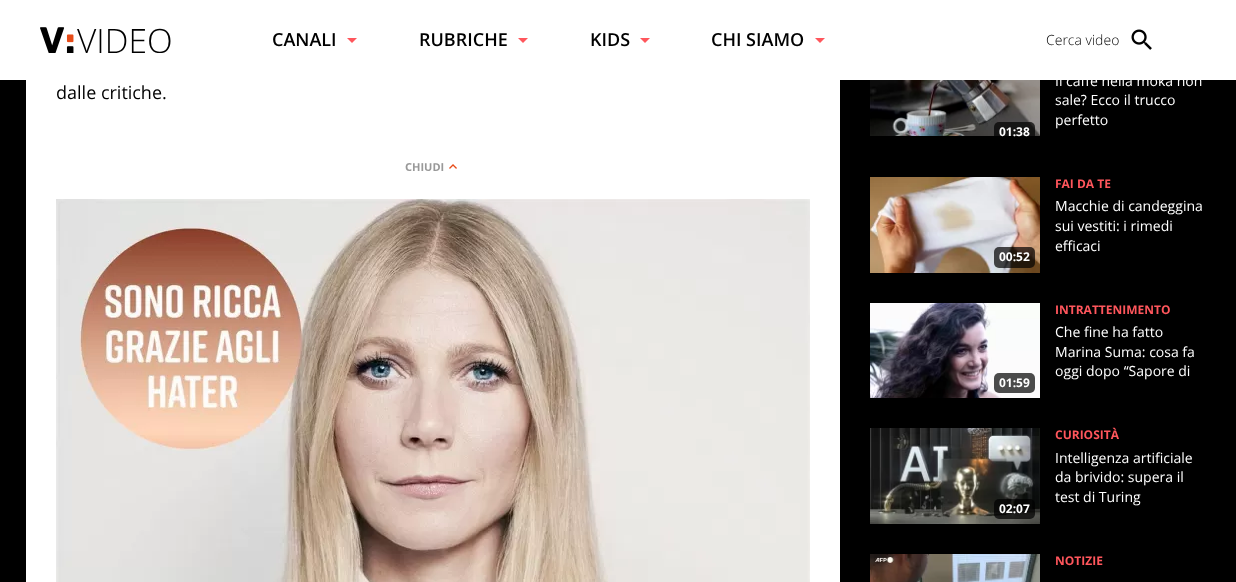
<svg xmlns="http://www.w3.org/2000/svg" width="1236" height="582">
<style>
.a{font:300 33.5px Open Sans;fill:#000}
.b{font:600 18px Open Sans;fill:#000}
.c{font:300 14px Open Sans;fill:#000}
.d{font:18px Open Sans;fill:#000}
.e{font:bold 11px Open Sans;fill:#999}
.f{font:14px Open Sans;fill:#fff}
.g{font:bold 12px Open Sans;fill:#fff}
.h{font:bold 12px Open Sans;fill:#ff565c}
</style>
<defs>
<clipPath id="clip1"><path d="M40 27h140v26H40z"/></clipPath>
</defs>
<rect width="100%" height="100%" fill="#000"/>
<path fill="#fff" d="M0 0h1236v80H0z"/>
<image href="1.png" x="40" y="27" width="34" height="26"/>
<path fill="#ff565c" d="M347 38h10l-5 5z"/>
<path fill="#ff565c" d="M518 38h10l-5 5z"/>
<path fill="#ff565c" d="M640 38h10l-5 5z"/>
<path fill="#ff565c" d="M815 38h10l-5 5z"/>
<image href="2.png" x="1131" y="29" width="21" height="21"/>
<path fill="#fff" d="M26 80h814v502H26z"/>
<image href="3.png" x="449" y="164" width="8" height="5"/>
<image href="4.png" x="56" y="199" width="754" height="383"/>
<image href="5.png" x="870" y="80" width="170" height="56"/>
<rect fill="#000000b3" x="994" y="122" width="41" height="20" rx="5"/>
<image href="6.png" x="870" y="177" width="170" height="96"/>
<rect fill="#000000b3" x="994" y="247" width="41" height="21" rx="5"/>
<image href="7.png" x="870" y="303" width="170" height="95"/>
<rect fill="#000000b3" x="994" y="373" width="41" height="20" rx="5"/>
<image href="8.png" x="870" y="428" width="170" height="96"/>
<rect fill="#000000b3" x="994" y="499" width="41" height="20" rx="5"/>
<image href="9.png" x="870" y="554" width="170" height="28"/>
<g clip-path="url(#clip1)">
<text class="a" x="77" y="53">VIDEO</text>
</g>
<text class="b" x="272" y="46">CANALI</text>
<text class="b" x="419" y="46">RUBRICHE</text>
<text class="b" x="590" y="46">KIDS</text>
<text class="b" x="711" y="46">CHI SIAMO</text>
<text class="c" x="1046" y="45">Cerca video</text>
<text class="d" x="56" y="99">dalle critiche.</text>
<text class="e" x="405" y="171">CHIUDI</text>
<text class="f" x="1055" y="86">Il caffè nella moka non</text>
<text class="f" x="1055" y="105">sale? Ecco il trucco</text>
<text class="f" x="1055" y="125">perfetto</text>
<text class="g" x="999" y="136">01:38</text>
<text class="h" x="1055" y="188">FAI DA TE</text>
<text class="f" x="1055" y="211">Macchie di candeggina</text>
<text class="f" x="1055" y="231">sui vestiti: i rimedi</text>
<text class="f" x="1055" y="251">efficaci</text>
<text class="g" x="999" y="261">00:52</text>
<text class="h" x="1055" y="314">INTRATTENIMENTO</text>
<text class="f" x="1055" y="337">Che fine ha fatto</text>
<text class="f" x="1055" y="357">Marina Suma: cosa fa</text>
<text class="f" x="1055" y="376">oggi dopo “Sapore di</text>
<text class="g" x="999" y="387">01:59</text>
<text class="h" x="1055" y="439">CURIOSITÀ</text>
<text class="f" x="1055" y="463">Intelligenza artificiale</text>
<text class="f" x="1055" y="482">da brivido: supera il</text>
<text class="f" x="1055" y="502">test di Turing</text>
<text class="g" x="999" y="513">02:07</text>
<text class="h" x="1055" y="565">NOTIZIE</text>
</svg>
